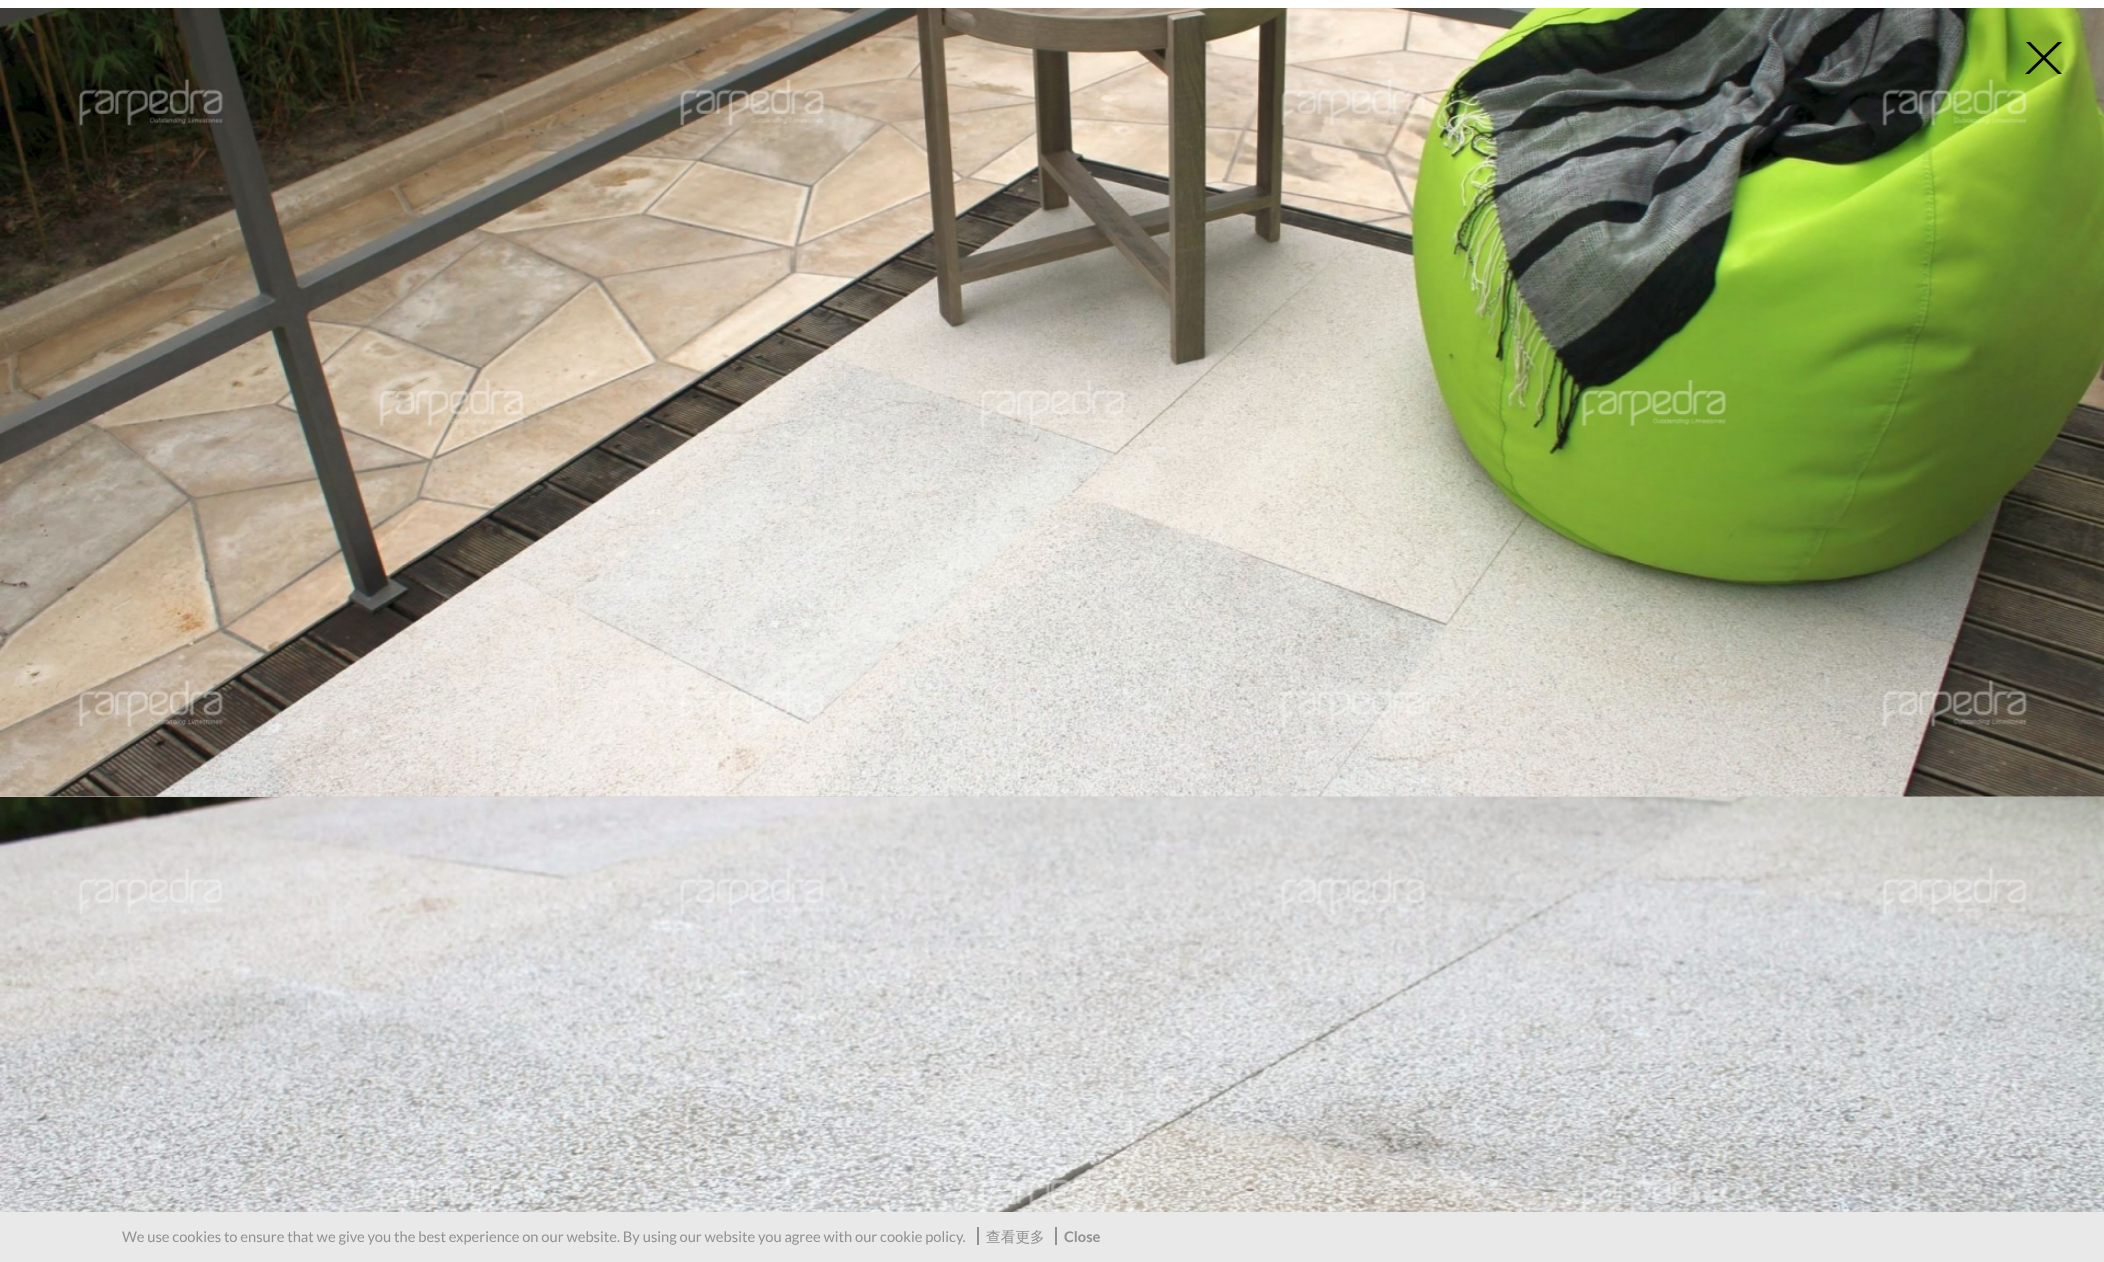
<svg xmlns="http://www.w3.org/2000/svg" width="2104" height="1262">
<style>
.a{font:14.7px Lato;fill:#919191}
.b{font:500 14.7px WenQuanYi Zen Hei;fill:#919191}
.c{font:bold 14.7px Lato;fill:#919191}
</style>
<defs>
<clipPath id="clip1"><path d="M2015 42h60v32H2015z"/></clipPath>
</defs>
<rect width="100%" height="100%" fill="#fff"/>
<path fill="#cacaca" d="M0 796h2104v1H0z"/>
<image href="1.png" x="0" y="8" width="2104" height="789"/>
<image href="2.png" x="0" y="797" width="2104" height="415"/>
<g clip-path="url(#clip1)">
<path fill="#000" d="M2025 37l41 41v1c-2 3-5-2-9-6l-34-34c-1-1 1-3 2-2z"/>
<path fill="#000" d="M2023 76l41-40h1c3 1-2 5-6 9l-34 33c-1 2-3-1-2-2z"/>
</g>
<path fill="#e9e9e9" d="M0 1212h2104v50H0z"/>
<path fill="#919191" d="M977 1227h2v18H977z"/>
<path fill="#919191" d="M1055 1227h2v18H1055z"/>
<text class="a" x="122" y="1242">We use cookies to ensure that we give you the best experience on our website. By using our website you agree with our cookie policy.</text>
<text class="b" x="986" y="1242">查看更多</text>
<text class="c" x="1064" y="1242">Close</text>
</svg>
